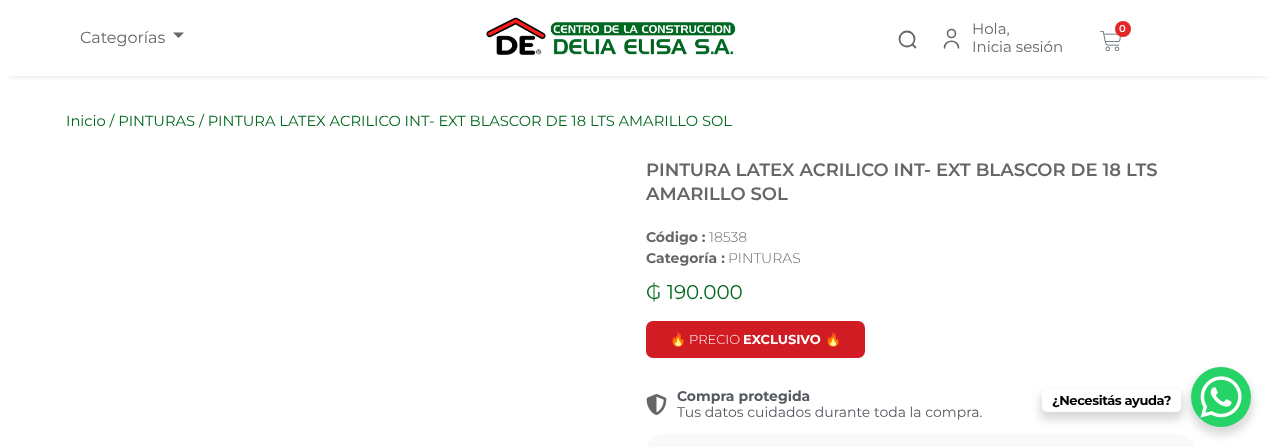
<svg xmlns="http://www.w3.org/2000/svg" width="1271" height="447">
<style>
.a{font:16px Montserrat;fill:#666}
.b{font:15px Montserrat;fill:#666}
.c{font:600 10px Montserrat;fill:#fff}
.d{font:14.7px Montserrat;fill:#00681f}
.e{font:600 18px Montserrat;fill:#666}
.f{font:bold 14px Montserrat;fill:#666}
.g{font:300 14px Montserrat;fill:#666}
.h{font:20px Montserrat;fill:#00681f}
.i{font:13px Noto Color Emoji;fill:#fff}
.j{font:300 13px Montserrat;fill:#fff}
.k{font:bold 13px Montserrat;fill:#fff}
.l{font:bold 14px Montserrat;fill:#54595f}
.m{font:14px Montserrat;fill:#54595f}
.n{font:bold 13px Montserrat;letter-spacing:-0.4px;fill:#000}
</style>
<defs>
<clipPath id="clip1"><path d="M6 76h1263v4H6z"/></clipPath>
</defs>
<rect width="100%" height="100%" fill="#fff"/>
<g clip-path="url(#clip1)">
<path fill="#00000080" filter="blur(5px)" d="M9 9h1257v62H9z"/>
</g>
<path fill="#666" d="M173 32.5h11l-5.5 5.5z"/>
<image href="1.png" x="486" y="17" width="250" height="38"/>
<circle fill="none" stroke="#666" stroke-width="1.6" cx="951.5" cy="33.5" r="4"/>
<path fill="none" stroke="#666" stroke-width="1.6" stroke-linecap="round" stroke-linejoin="round" d="M944.5 48c0-9 14-9 14 0"/>
<image href="2.png" x="1100" y="30" width="21" height="22"/>
<circle fill="#e42626" cx="1123" cy="29" r="8"/>
<circle fill="none" stroke="#666" stroke-width="1.8" cx="907" cy="39" r="7.5"/>
<path fill="none" stroke="#666" stroke-width="1.8" d="M916 48l-3.5-3.5"/>
<rect fill="#d21c23" x="646" y="321" width="219" height="37" rx="7"/>
<image href="3.png" x="646" y="394" width="21" height="21"/>
<rect fill="#f9f9f9" x="646" y="434" width="550" height="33" rx="20"/>
<rect fill="#00000026" filter="blur(4px)" x="1189" y="371" width="64" height="64" rx="32"/>
<circle fill="#25d366" cx="1221" cy="397" r="30"/>
<rect fill="#00000026" filter="blur(4px)" x="1040" y="393" width="143" height="27" rx="7"/>
<rect fill="#fff" x="1042" y="389" width="139" height="23" rx="5"/>
<image href="4.png" x="1200" y="376" width="42" height="42"/>
<text class="a" x="80" y="43">Categorías</text>
<text class="b" x="972" y="34">Hola,</text>
<text class="b" x="972" y="52">Inicia sesión</text>
<text class="c" x="1119" y="32">0</text>
<text class="d" x="66" y="126">Inicio / PINTURAS / PINTURA LATEX ACRILICO INT- EXT BLASCOR DE 18 LTS AMARILLO SOL</text>
<text class="e" x="646" y="176">PINTURA LATEX ACRILICO INT- EXT BLASCOR DE 18 LTS</text>
<text class="e" x="646" y="200">AMARILLO SOL</text>
<text class="f" x="646" y="242">Código :</text>
<text class="g" x="709" y="242">18538</text>
<text class="f" x="646" y="263">Categoría :</text>
<text class="g" x="728" y="263">PINTURAS</text>
<text class="h" x="646" y="299">₲ 190.000</text>
<text class="i" x="670" y="344">🔥</text>
<text class="j" x="689" y="344">PRECIO</text>
<text class="k" x="743" y="344">EXCLUSIVO</text>
<text class="i" x="825" y="344">🔥</text>
<text class="l" x="677" y="401">Compra protegida</text>
<text class="m" x="677" y="417">Tus datos cuidados durante toda la compra.</text>
<text class="n" x="1052" y="405">¿Necesitás ayuda?</text>
</svg>
